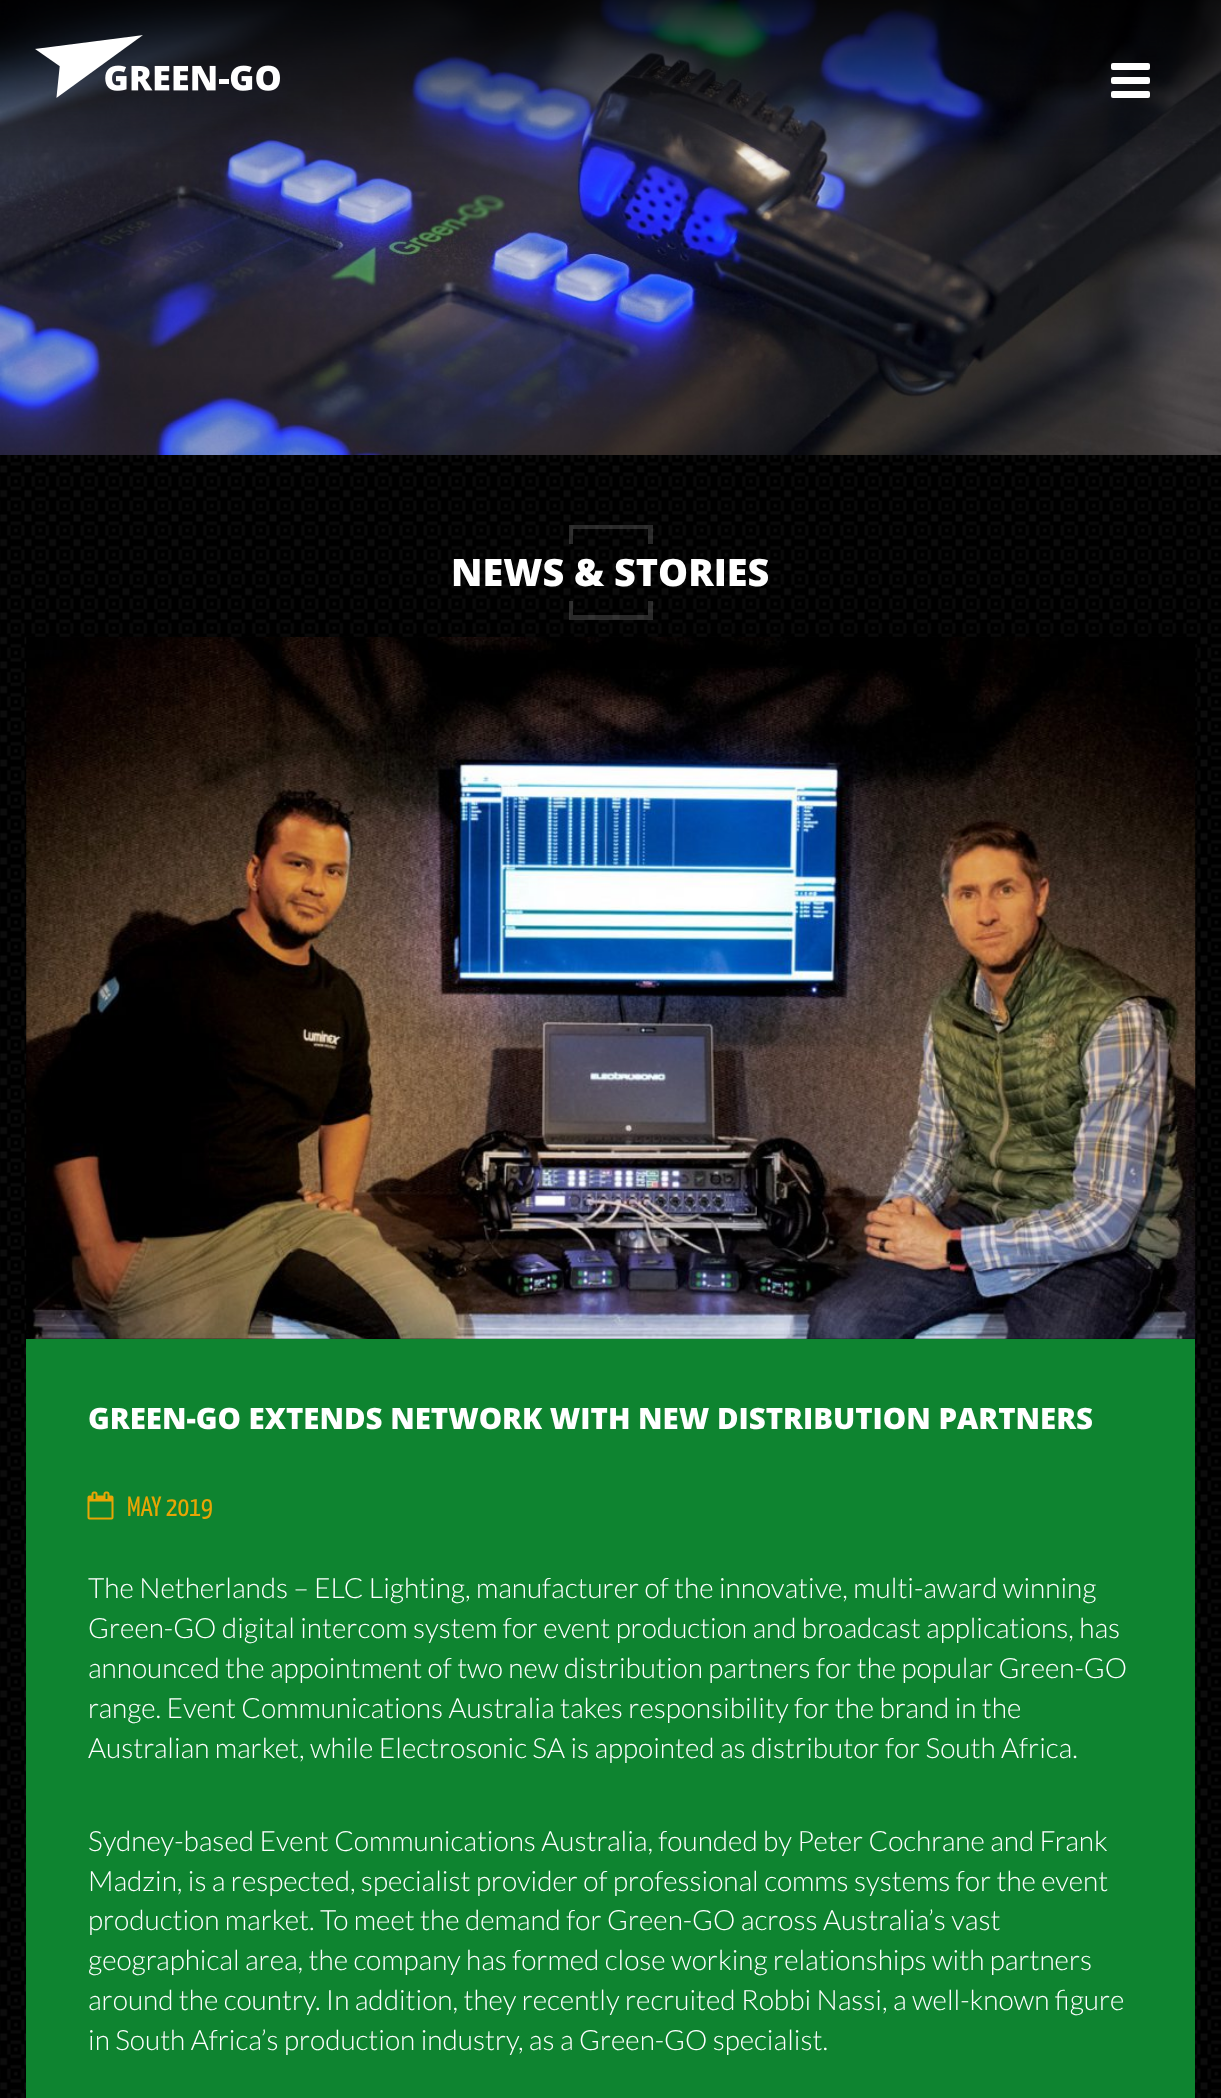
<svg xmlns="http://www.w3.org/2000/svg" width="1221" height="2098">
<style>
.a{font:800 37.75px Open Sans;fill:#fff}
.b{font:800 29.4px Open Sans;fill:#fff}
.c{font:200 28px Yanone Kaffeesatz;fill:#e8a505}
.d{font:300 28px Lato;fill:#fff}
</style>
<rect width="100%" height="100%" fill="#fff"/>
<image href="1.png" x="0" y="455" width="1221" height="1643"/>
<image href="2.png" x="0" y="0" width="1221" height="455"/>
<image href="3.png" x="35" y="35" width="245" height="63"/>
<rect fill="#fff" x="1111" y="63" width="39" height="7" rx="2"/>
<rect fill="#fff" x="1111" y="77" width="39" height="7" rx="2"/>
<rect fill="#fff" x="1111" y="91" width="39" height="7" rx="2"/>
<path fill="#ffffff29" d="M653 525h-84v19h4v-15h75v15h5z"/>
<path fill="#ffffff29" d="M648 615h-75v-14h-4v19h84v-19h-5z"/>
<image href="4.png" x="26" y="637" width="1170" height="702"/>
<path fill="#0e8430" d="M26 1339h1169v759H26z"/>
<image href="5.png" x="87" y="1491" width="27" height="29"/>
<text class="a" x="451" y="586">NEWS &amp; STORIES</text>
<text class="b" x="88" y="1429">GREEN-GO EXTENDS NETWORK WITH NEW DISTRIBUTION PARTNERS</text>
<text class="c" x="127" y="1516">MAY 2019</text>
<text class="d" x="88" y="1598">The Netherlands – ELC Lighting, manufacturer of the innovative, multi-award winning</text>
<text class="d" x="88" y="1638">Green-GO digital intercom system for event production and broadcast applications, has</text>
<text class="d" x="88" y="1678">announced the appointment of two new distribution partners for the popular Green-GO</text>
<text class="d" x="88" y="1718">range. Event Communications Australia takes responsibility for the brand in the</text>
<text class="d" x="88" y="1758">Australian market, while Electrosonic SA is appointed as distributor for South Africa.</text>
<text class="d" x="88" y="1851">Sydney-based Event Communications Australia, founded by Peter Cochrane and Frank</text>
<text class="d" x="88" y="1891">Madzin, is a respected, specialist provider of professional comms systems for the event</text>
<text class="d" x="88" y="1930">production market. To meet the demand for Green-GO across Australia’s vast</text>
<text class="d" x="88" y="1970">geographical area, the company has formed close working relationships with partners</text>
<text class="d" x="88" y="2010">around the country. In addition, they recently recruited Robbi Nassi, a well-known figure</text>
<text class="d" x="88" y="2050">in South Africa’s production industry, as a Green-GO specialist.</text>
</svg>
